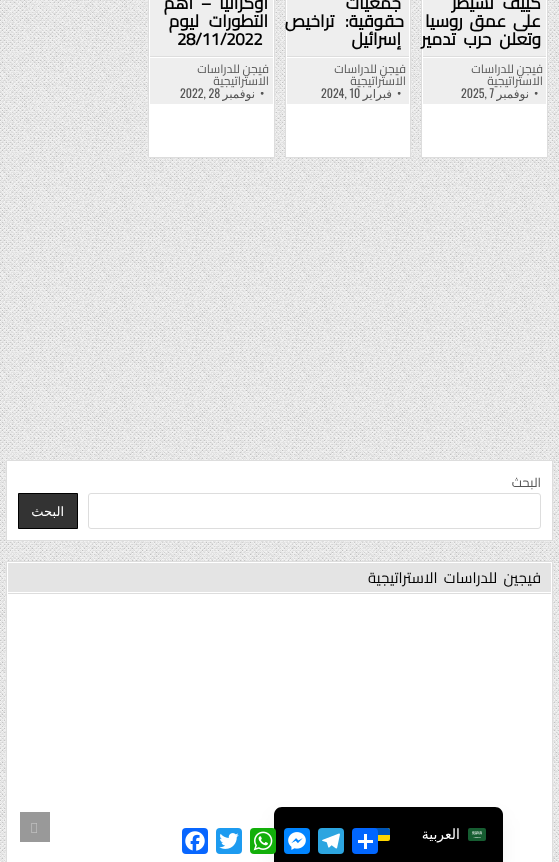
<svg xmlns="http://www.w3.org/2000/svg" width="559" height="862">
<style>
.a{font:bold 17px Cairo;letter-spacing:-0.5px;direction:rtl;fill:#000}
.b{font:12px Cairo;direction:rtl;fill:#555}
.c{font:12px Oswald;fill:#555}
.d{font:12px DejaVu Sans;direction:rtl;fill:#555}
.e{font:bold 17px Cairo;letter-spacing:-0.5px;fill:#000}
.f{font:13px Cairo;direction:rtl;fill:#555}
.g{font:13px DejaVu Sans;direction:rtl;fill:#fff}
.h{font:15px Cairo;letter-spacing:-0.2px;direction:rtl;fill:#000}
.i{font:14px DejaVu Sans;direction:rtl;fill:#fff}
</style>
<rect width="100%" height="100%" fill="#fff"/>
<image href="1.png" x="0" y="0" width="559" height="862"/>
<path fill="#fff" stroke="#ddd" d="M421.5 -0.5h126v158H421.5z"/>
<path fill="#eee" d="M423 0h123v56H423z"/>
<path fill="#eee" d="M423 58h123v46H423z"/>
<path fill="#ddd" d="M423 56h123v1H423z"/>
<path fill="#fff" stroke="#ddd" d="M285.5 -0.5h125v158H285.5z"/>
<path fill="#eee" d="M287 0h122v56H287z"/>
<path fill="#eee" d="M287 58h122v46H287z"/>
<path fill="#ddd" d="M287 56h122v1H287z"/>
<path fill="#fff" stroke="#ddd" d="M148.5 -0.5h126v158H148.5z"/>
<path fill="#eee" d="M150 0h123v56H150z"/>
<path fill="#eee" d="M150 58h123v46H150z"/>
<path fill="#ddd" d="M150 56h123v1H150z"/>
<path fill="#fff" stroke="#ddd" d="M6.5 460.5h546v80H6.5z"/>
<rect fill="none" stroke="#ddd" x="88.5" y="493.5" width="452" height="35" rx="2.5"/>
<path fill="#333" stroke="#000" d="M18.5 493.5h59v35H18.5z"/>
<path fill="#fff" stroke="#ddd" d="M6.5 561.5h546v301H6.5z"/>
<path fill="#e4e4e4" d="M8 563h543v29H8z"/>
<path fill="#ddd" d="M8 593h543v1H8z"/>
<rect fill="#0000000d" filter="blur(10px)" x="274" y="817" width="229" height="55" rx="8"/>
<path fill="#000" d="M282 807h213c4.5 0 8 3.5 8 8v47h-229v-47c0-4.5 3.5-8 8-8z"/>
<image href="2.png" x="468" y="828" width="18" height="13"/>
<rect fill="#ffd700" x="372" y="828" width="18" height="13" rx="2"/>
<path fill="#0057b8" d="M374 828h14c1 0 2 1 2 2v5h-18v-5c0-1 1-2 2-2z"/>
<rect fill="#0166ff" x="352" y="828" width="26" height="26" rx="4"/>
<path fill="#fff" d="M364 834h3v15H364z"/>
<path fill="#fff" d="M358 840h15v3H358z"/>
<rect fill="#2ca5e0" x="318" y="828" width="26" height="26" rx="4"/>
<image href="3.png" x="322" y="833" width="18" height="16"/>
<rect fill="#0084ff" x="284" y="828" width="26" height="26" rx="4"/>
<image href="4.png" x="288" y="832" width="18" height="18"/>
<rect fill="#12af0a" x="250" y="828" width="26" height="26" rx="4"/>
<image href="5.png" x="253" y="831" width="20" height="20"/>
<rect fill="#1d9bf0" x="216" y="828" width="26" height="26" rx="4"/>
<image href="6.png" x="219" y="833" width="20" height="16"/>
<rect fill="#0866ff" x="182" y="828" width="26" height="26" rx="4"/>
<image href="7.png" x="185" y="831" width="20" height="20"/>
<path fill="#999" d="M20 812h30v30H20z"/>
<image href="8.png" x="31" y="823" width="6" height="10"/>
<text class="a" x="541" y="9" word-spacing="5">كييف تسيطر</text>
<text class="a" x="541" y="27" word-spacing="3">على عمق روسيا</text>
<text class="a" x="541" y="45" word-spacing="4">وتعلن حرب تدمير</text>
<text class="b" x="543" y="73">فيجن للدراسات</text>
<text class="b" x="543" y="85">الاستراتيجية</text>
<text class="c" x="534" y="98">•</text>
<text class="d" x="529" y="98">نوفمبر</text>
<text class="c" x="461" y="98">2025, 7</text>
<text class="a" x="401" y="9">جمعيات</text>
<text class="a" x="404" y="27" word-spacing="7">حقوقية: تراخيص</text>
<text class="a" x="401" y="45">إسرائيل</text>
<text class="b" x="406" y="73">فيجن للدراسات</text>
<text class="b" x="406" y="85">الاستراتيجية</text>
<text class="c" x="397" y="98">•</text>
<text class="d" x="392" y="98">فبراير</text>
<text class="c" x="321" y="98">2024, 10</text>
<text class="a" x="268" y="9" word-spacing="4">أوكرانيا – اهم</text>
<text class="a" x="268" y="27" word-spacing="6">التطورات ليوم</text>
<text class="e" x="177" y="45">28/11/2022</text>
<text class="b" x="269" y="73">فيجن للدراسات</text>
<text class="b" x="269" y="85">الاستراتيجية</text>
<text class="c" x="260" y="98">•</text>
<text class="d" x="255" y="98">نوفمبر</text>
<text class="c" x="180" y="98">2022, 28</text>
<text class="f" x="541" y="487">البحث</text>
<text class="g" x="64" y="516">البحث</text>
<text class="h" x="541" y="583" word-spacing="3">فيجين للدراسات الاستراتيجية</text>
<text class="i" x="460" y="839">العربية</text>
</svg>
